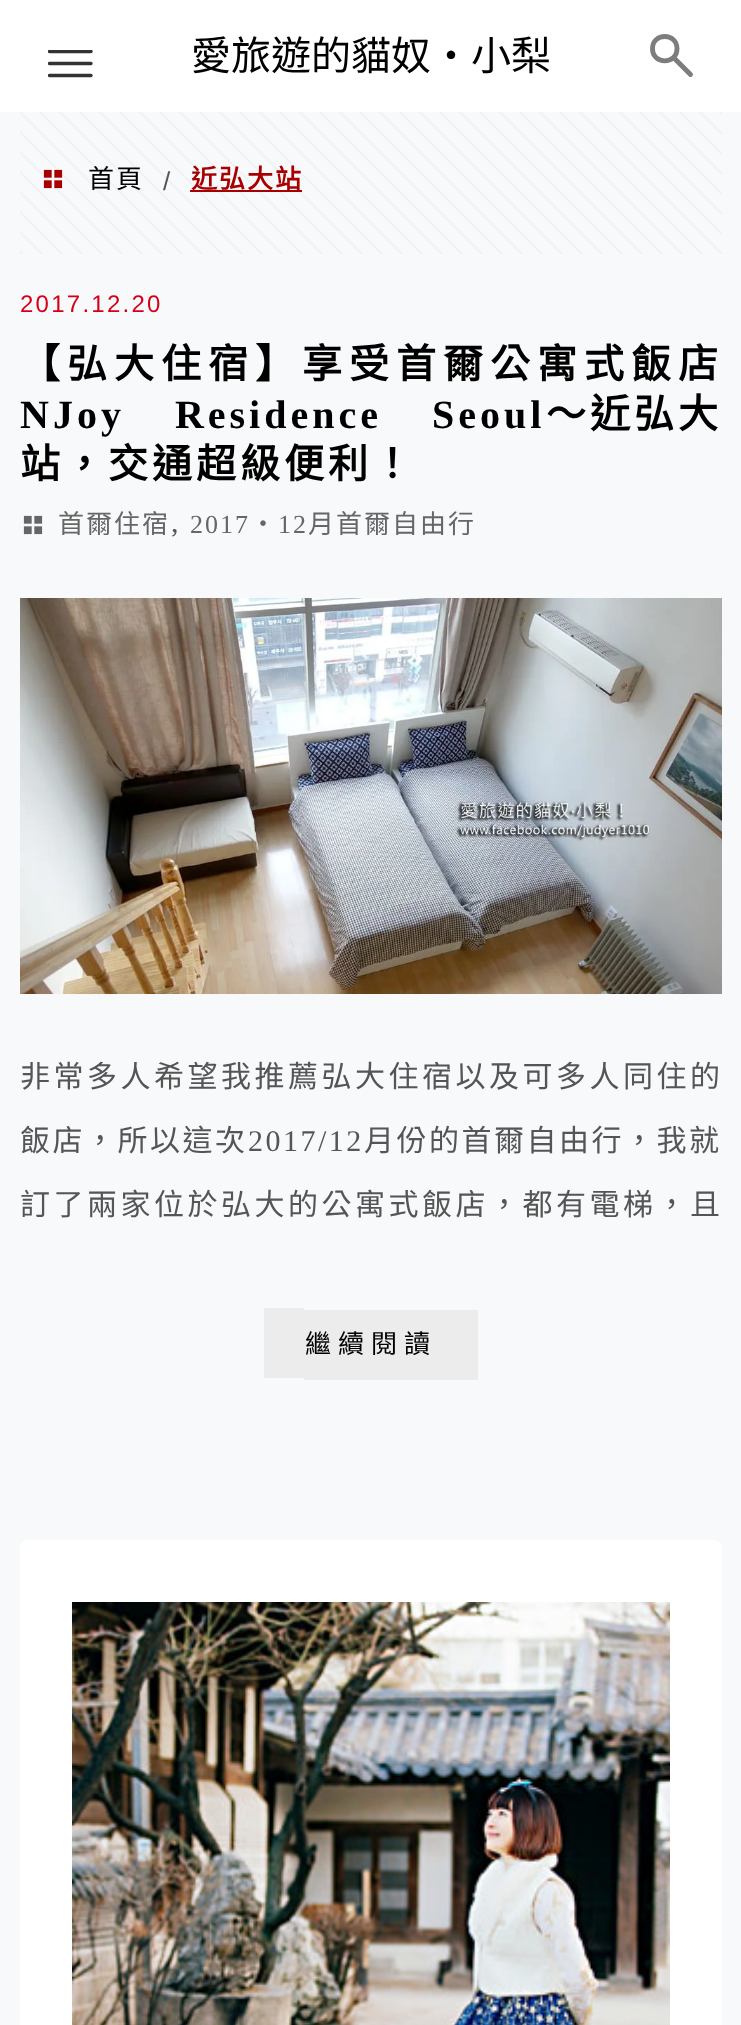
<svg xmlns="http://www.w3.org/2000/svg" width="741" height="2025">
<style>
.a{font:40px Noto Sans CJK TC;fill:#000}
.b{font:26px Noto Sans CJK TC;letter-spacing:2px;fill:#000}
.c{font:26px Liberation Sans;letter-spacing:2px;fill:#555}
.d{font:bold 26px Noto Sans CJK TC;letter-spacing:2px;fill:#a80000}
.e{font:24px Liberation Sans;letter-spacing:2.25px;fill:#d30017}
.f{font:bold 40px Noto Sans CJK TC;letter-spacing:7px;fill:#000}
.g{font:bold 40px Liberation Serif;letter-spacing:4px;fill:#000}
.h{font:bold 40px Noto Sans CJK TC;letter-spacing:4px;fill:#000}
.i{font:26px Noto Sans CJK TC;letter-spacing:2px;fill:#666}
.j{font:26px Liberation Serif;letter-spacing:2px;fill:#666}
.k{font:30px Liberation Serif;letter-spacing:2px;fill:#555}
.l{font:30px Noto Sans CJK TC;letter-spacing:3.5px;fill:#555}
.m{font:30px Noto Sans CJK TC;letter-spacing:2.5px;fill:#555}
.n{font:30px Liberation Serif;letter-spacing:2.5px;fill:#555}
.o{font:26px Noto Sans CJK TC;letter-spacing:7px;fill:#000}
</style>
<defs>
<clipPath id="clip1"><path d="M48 50h48v38H48z"/></clipPath>
</defs>
<rect width="100%" height="100%" fill="#f7f9fa"/>
<path fill="#fff" d="M0 0h741v112H0z"/>
<g clip-path="url(#clip1)">
<path fill="none" stroke="#333" stroke-width="3.4" stroke-linecap="round" d="M49.5 51.5h41.5m-41.5 12h41.5m-41.5 12h41.5"/>
</g>
<path fill="none" stroke="#7d7d7d" stroke-width="4.9" stroke-linecap="round" d="M674.5 58.5l16 16m-13.5-26c0 16.5-24.5 16.5-24.5 0c0-16 24.5-16 24.5 0z"/>
<image href="1.png" x="20" y="112" width="702" height="142"/>
<image href="2.png" x="43" y="169" width="20" height="20"/>
<path fill="#a80000" d="M190 190h112v2H190z"/>
<image href="3.png" x="23" y="515" width="20" height="20"/>
<image href="4.png" x="20" y="598" width="702" height="396"/>
<path fill="#ececec" d="M264 1308h40v70H264z"/>
<path fill="#ececec" d="M304 1310h174v70H304z"/>
<rect fill="#fff" x="20" y="1540" width="702" height="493" rx="8"/>
<image href="5.png" x="72" y="1602" width="598" height="423"/>
<text class="a" x="191" y="70">愛旅遊的貓奴‧小梨</text>
<text class="b" x="88" y="188">首頁</text>
<text class="c" x="163" y="190">/</text>
<text class="d" x="191" y="188">近弘大站</text>
<text class="e" x="20" y="312">2017.12.20</text>
<text class="f" x="20" y="378">【弘大住宿】享受首爾公寓式飯店</text>
<text class="g" x="20" y="428" word-spacing="36">NJoy Residence Seoul</text>
<text class="h" x="546" y="428">～近弘大</text>
<text class="h" x="20" y="478">站，交通超級便利！</text>
<text class="i" x="58" y="533">首爾住宿</text>
<text class="j" x="190" y="533">2017</text>
<text class="i" x="250" y="533">‧</text>
<text class="j" x="278" y="533">12</text>
<text class="i" x="308" y="533">月首爾自由行</text>
<text class="k" x="171" y="532">,</text>
<text class="l" x="20" y="1087">非常多人希望我推薦弘大住宿以及可多人同住的</text>
<text class="m" x="20" y="1151">飯店，所以這次</text>
<text class="n" x="248" y="1151">2017/12</text>
<text class="m" x="364" y="1151">月份的首爾自由行，我就</text>
<text class="l" x="20" y="1215">訂了兩家位於弘大的公寓式飯店，都有電梯，且</text>
<text class="o" x="305" y="1353">繼續閱讀</text>
</svg>
